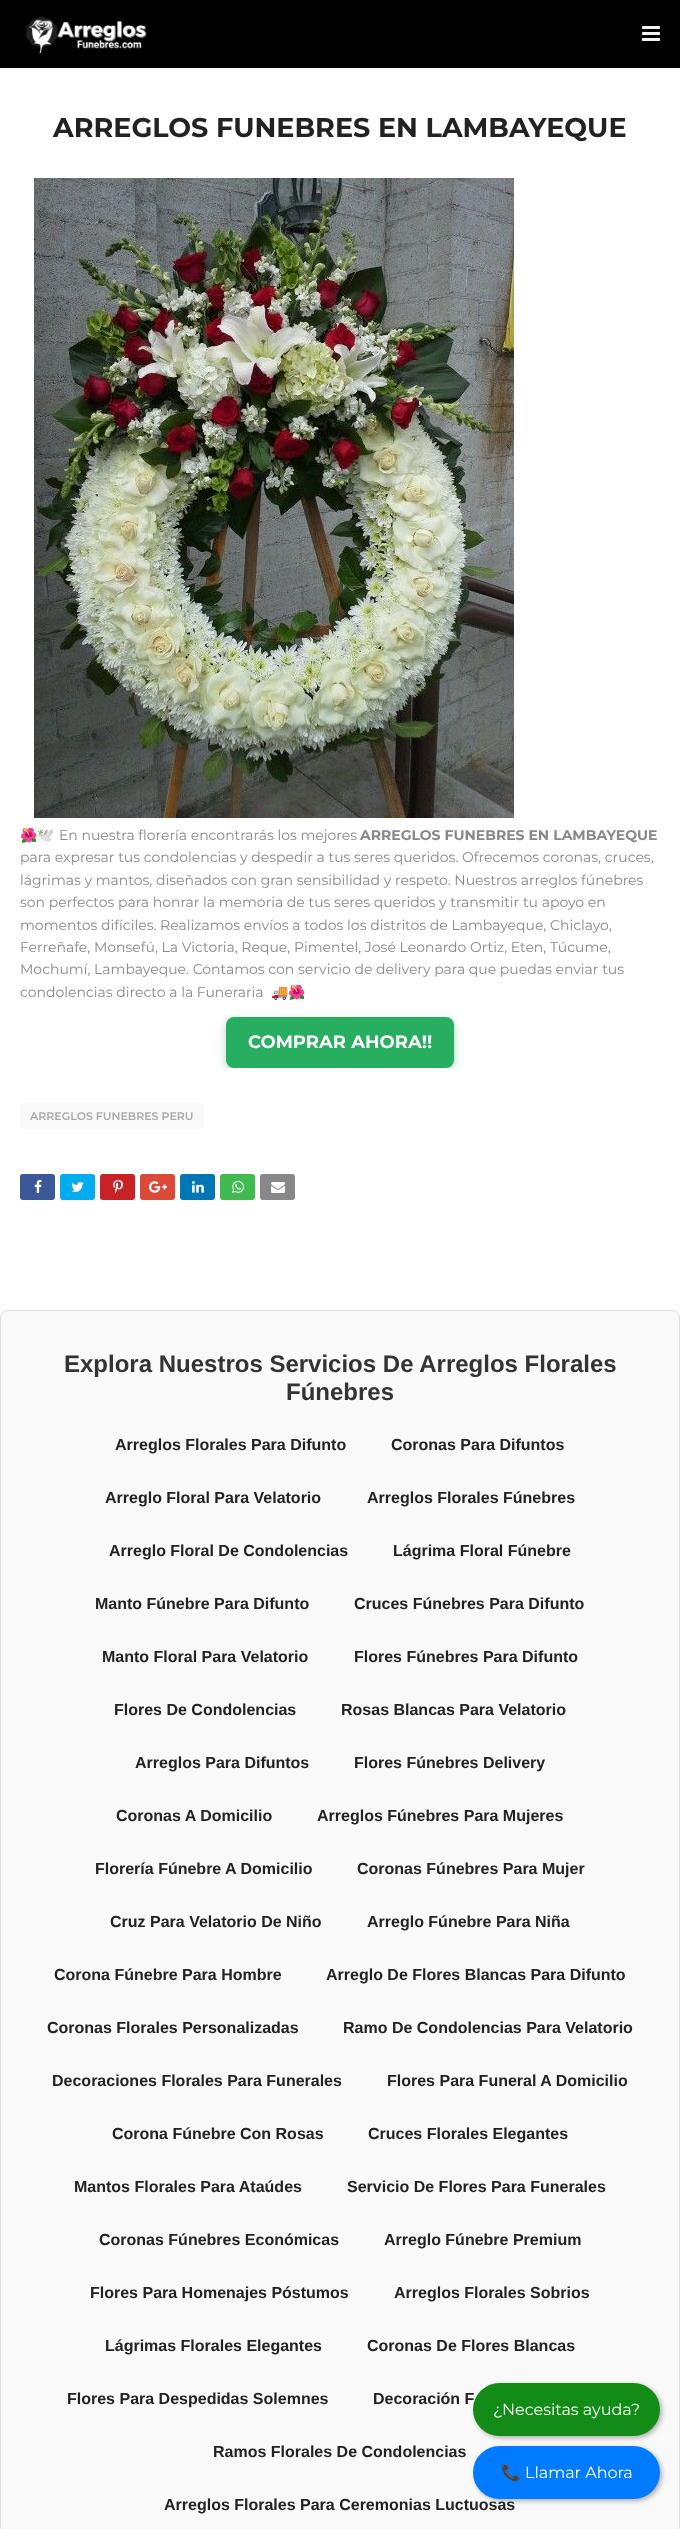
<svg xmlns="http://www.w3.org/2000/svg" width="680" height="2529">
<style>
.a{font:bold 27px Montserrat;fill:#222}
.b{font:14px Noto Color Emoji;fill:#888}
.c{font:14px Montserrat;fill:#888}
.d{font:bold 14px Montserrat;fill:#888}
.e{font:bold 18px Montserrat;fill:#fff}
.f{font:600 11px Montserrat;fill:#aaa}
.g{font:bold 24px Liberation Sans;fill:#333}
.h{font:bold 16px Liberation Sans;fill:#222}
.i{font:16px Montserrat;fill:#fff}
.j{font:16px Noto Color Emoji;fill:#fff}
</style>
<defs>
<clipPath id="clip1"><path d="M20 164h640v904H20z"/></clipPath>
</defs>
<rect width="100%" height="100%" fill="#fff"/>
<path fill="#0000000d" filter="blur(2.5px)" d="M-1 -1h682v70H-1z"/>
<path fill="#000" d="M0 0h680v68H0z"/>
<image href="1.png" x="26" y="16" width="121" height="37"/>
<image href="2.png" x="642" y="26" width="18" height="15"/>
<image href="3.png" x="34" y="178" width="480" height="640"/>
<g clip-path="url(#clip1)">
<rect fill="#27ae6066" filter="blur(5px)" x="226" y="1021" width="228" height="51" rx="8"/>
</g>
<rect fill="#27ae60" stroke="#27ae60" stroke-width="2" x="227" y="1018" width="226" height="49" rx="7"/>
<rect fill="#f9f9f9" x="20" y="1103" width="184" height="26" rx="3"/>
<rect fill="#3b5999" x="20" y="1174" width="35" height="26" rx="3"/>
<image href="4.png" x="34" y="1180" width="8" height="13"/>
<rect fill="#00acee" x="60" y="1174" width="35" height="26" rx="3"/>
<image href="5.png" x="71" y="1182" width="13" height="10"/>
<rect fill="#ca2127" x="100" y="1174" width="35" height="26" rx="3"/>
<image href="6.png" x="113" y="1180" width="10" height="13"/>
<rect fill="#db4a39" x="140" y="1174" width="35" height="26" rx="3"/>
<image href="7.png" x="149" y="1181" width="18" height="12"/>
<rect fill="#0077b5" x="180" y="1174" width="35" height="26" rx="3"/>
<image href="8.png" x="192" y="1181" width="12" height="12"/>
<rect fill="#3fbb50" x="220" y="1174" width="35" height="26" rx="3"/>
<image href="9.png" x="232" y="1181" width="12" height="12"/>
<rect fill="#888" x="260" y="1174" width="35" height="26" rx="3"/>
<image href="10.png" x="271" y="1182" width="14" height="11"/>
<rect fill="#f9f9f9" stroke="#ddd" x="0.5" y="1310.5" width="679" height="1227" rx="7.5"/>
<rect fill="#0000004d" filter="blur(2.5px)" x="475" y="2385" width="187" height="53" rx="26.5"/>
<rect fill="#0000004d" filter="blur(2.5px)" x="475" y="2448" width="187" height="53" rx="26.5"/>
<text class="a" x="53" y="137">ARREGLOS FUNEBRES EN LAMBAYEQUE</text>
<text class="b" x="20" y="840">🌺🕊️</text>
<text class="c" x="59" y="840">En nuestra florería encontrarás los mejores</text>
<text class="d" x="360" y="840">ARREGLOS FUNEBRES EN LAMBAYEQUE</text>
<text class="c" x="20" y="862">para expresar tus condolencias y despedir a tus seres queridos. Ofrecemos coronas, cruces,</text>
<text class="c" x="20" y="885">lágrimas y mantos, diseñados con gran sensibilidad y respeto. Nuestros arreglos fúnebres</text>
<text class="c" x="20" y="907">son perfectos para honrar la memoria de tus seres queridos y transmitir tu apoyo en</text>
<text class="c" x="20" y="930">momentos difíciles. Realizamos envíos a todos los distritos de Lambayeque, Chiclayo,</text>
<text class="c" x="20" y="952">Ferreñafe, Monsefú, La Victoria, Reque, Pimentel, José Leonardo Ortiz, Eten, Túcume,</text>
<text class="c" x="20" y="974">Mochumí, Lambayeque. Contamos con servicio de delivery para que puedas enviar tus</text>
<text class="c" x="20" y="997">condolencias directo a la Funeraria</text>
<text class="b" x="271" y="997">🚚🌺</text>
<text class="e" x="248" y="1048">COMPRAR AHORA!!</text>
<text class="f" x="30" y="1120">ARREGLOS FUNEBRES PERU</text>
<text class="g" x="64" y="1372">Explora Nuestros Servicios De Arreglos Florales</text>
<text class="g" x="286" y="1400">Fúnebres</text>
<text class="h" x="115" y="1450">Arreglos Florales Para Difunto</text>
<text class="h" x="391" y="1450">Coronas Para Difuntos</text>
<text class="h" x="105" y="1503">Arreglo Floral Para Velatorio</text>
<text class="h" x="367" y="1503">Arreglos Florales Fúnebres</text>
<text class="h" x="109" y="1556">Arreglo Floral De Condolencias</text>
<text class="h" x="393" y="1556">Lágrima Floral Fúnebre</text>
<text class="h" x="95" y="1609">Manto Fúnebre Para Difunto</text>
<text class="h" x="354" y="1609">Cruces Fúnebres Para Difunto</text>
<text class="h" x="102" y="1662">Manto Floral Para Velatorio</text>
<text class="h" x="354" y="1662">Flores Fúnebres Para Difunto</text>
<text class="h" x="114" y="1715">Flores De Condolencias</text>
<text class="h" x="341" y="1715">Rosas Blancas Para Velatorio</text>
<text class="h" x="135" y="1768">Arreglos Para Difuntos</text>
<text class="h" x="354" y="1768">Flores Fúnebres Delivery</text>
<text class="h" x="116" y="1821">Coronas A Domicilio</text>
<text class="h" x="317" y="1821">Arreglos Fúnebres Para Mujeres</text>
<text class="h" x="95" y="1874">Florería Fúnebre A Domicilio</text>
<text class="h" x="357" y="1874">Coronas Fúnebres Para Mujer</text>
<text class="h" x="110" y="1927">Cruz Para Velatorio De Niño</text>
<text class="h" x="367" y="1927">Arreglo Fúnebre Para Niña</text>
<text class="h" x="54" y="1980">Corona Fúnebre Para Hombre</text>
<text class="h" x="326" y="1980">Arreglo De Flores Blancas Para Difunto</text>
<text class="h" x="47" y="2033">Coronas Florales Personalizadas</text>
<text class="h" x="343" y="2033">Ramo De Condolencias Para Velatorio</text>
<text class="h" x="52" y="2086">Decoraciones Florales Para Funerales</text>
<text class="h" x="387" y="2086">Flores Para Funeral A Domicilio</text>
<text class="h" x="112" y="2139">Corona Fúnebre Con Rosas</text>
<text class="h" x="368" y="2139">Cruces Florales Elegantes</text>
<text class="h" x="74" y="2192">Mantos Florales Para Ataúdes</text>
<text class="h" x="347" y="2192">Servicio De Flores Para Funerales</text>
<text class="h" x="99" y="2245">Coronas Fúnebres Económicas</text>
<text class="h" x="384" y="2245">Arreglo Fúnebre Premium</text>
<text class="h" x="90" y="2298">Flores Para Homenajes Póstumos</text>
<text class="h" x="394" y="2298">Arreglos Florales Sobrios</text>
<text class="h" x="105" y="2351">Lágrimas Florales Elegantes</text>
<text class="h" x="367" y="2351">Coronas De Flores Blancas</text>
<text class="h" x="67" y="2404">Flores Para Despedidas Solemnes</text>
<text class="h" x="373" y="2404">Decoración F</text>
<text class="h" x="213" y="2457">Ramos Florales De Condolencias</text>
<text class="h" x="164" y="2510">Arreglos Florales Para Ceremonias Luctuosas</text>
<rect fill="#128c16" x="473" y="2383" width="187" height="53" rx="26.5"/>
<text class="i" x="493" y="2415">¿Necesitas ayuda?</text>
<rect fill="#007bff" x="473" y="2446" width="187" height="53" rx="26.5"/>
<text class="j" x="501" y="2478">📞</text>
<text class="i" x="525" y="2478">Llamar Ahora</text>
</svg>
